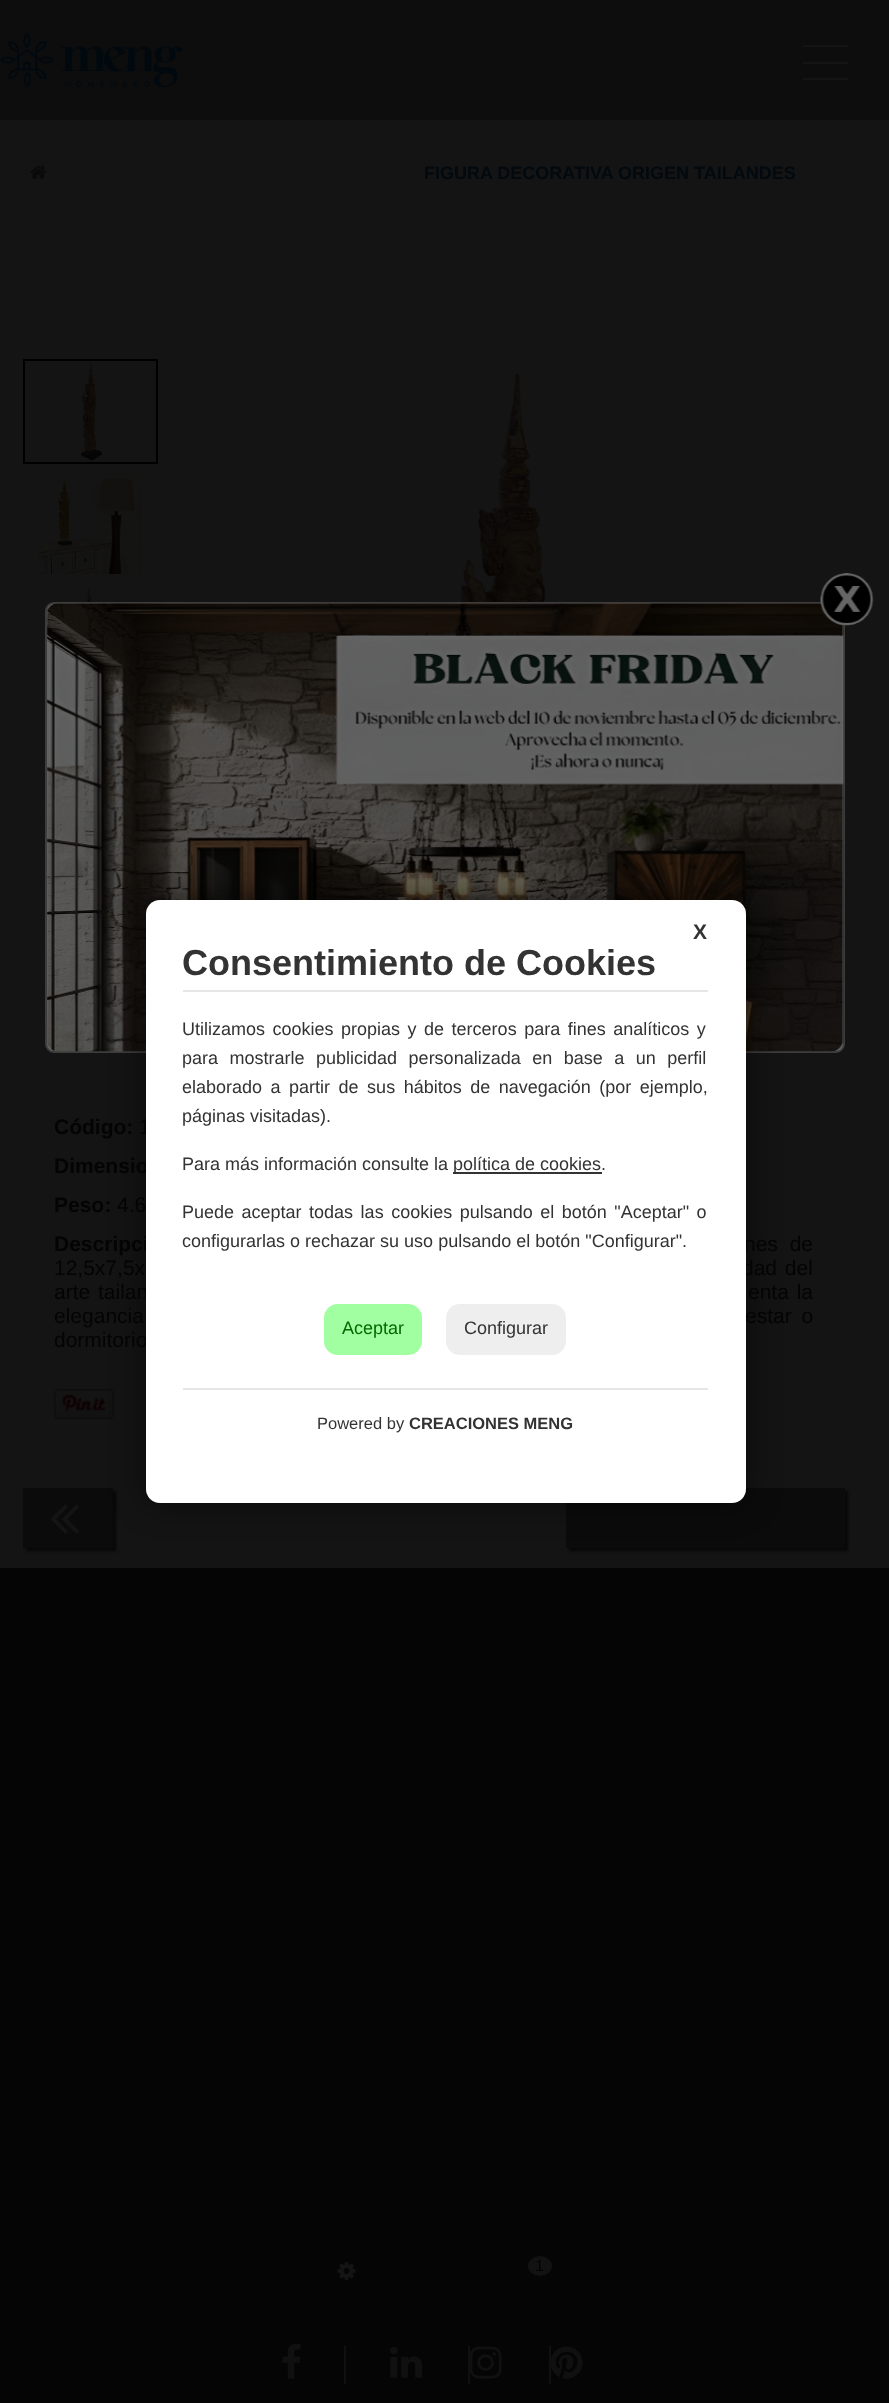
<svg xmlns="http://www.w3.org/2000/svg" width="889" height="2403">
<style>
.a{font:bold 18px Liberation Sans;fill:#02090f}
.b{font:bold 21px Liberation Sans;fill:#040404}
.c{font:21px Liberation Sans;fill:#040404}
.d{font:18px Liberation Sans;fill:#333}
.e{font:18px Liberation Sans;fill:#036900}
.f{font:bold 16.5px Liberation Sans;fill:#333}
.g{font:16.5px Liberation Sans;fill:#333}
.h{font:bold 36px Liberation Sans;fill:#333}
.i{font:bold 21px Liberation Sans;fill:#333}
.j{font:16px Liberation Sans;letter-spacing:2px;fill:#040404}
</style>
<rect width="100%" height="100%" fill="#141414"/>
<path fill="#0d0d0d" d="M0 0h889v120H0z"/>
<image href="1.png" x="0" y="32" width="182" height="56"/>
<path fill="#141414" d="M803 45h45v2H803z"/>
<path fill="#141414" d="M803 62h45v2H803z"/>
<path fill="#141414" d="M803 78h45v2H803z"/>
<image href="2.png" x="30" y="165" width="17" height="14"/>
<rect fill="#666" stroke="#3d3d3d" stroke-width="2" x="46" y="603" width="798" height="449" rx="8"/>
<image href="3.png" x="47" y="603" width="797" height="449"/>
<image href="8.png" x="192" y="360" width="636" height="242"/>
<image href="4.png" x="820" y="573" width="54" height="53"/>
<image href="9.png" x="54" y="1389" width="60" height="30"/>
<path fill="#070707" filter="blur(1.5px)" d="M26 1491h90v60H26z"/>
<path fill="#0b0b0b" d="M23 1488h90v60H23z"/>
<path fill="#070707" filter="blur(1.5px)" d="M569 1491h279v60H569z"/>
<path fill="#0b0b0b" d="M566 1488h279v60H566z"/>
<rect fill="#0000008a" filter="blur(16.5px)" x="146" y="900" width="600" height="603" rx="14"/>
<image href="5.png" x="81" y="362" width="21" height="99"/>
<path fill="none" stroke="#000" stroke-width="2" d="M24 360h133v103H24z"/>
<image href="6.png" x="39" y="473" width="102" height="101"/>
<image href="7.png" x="81" y="586" width="19" height="16"/>
<image href="10.png" x="50" y="1504" width="30" height="30"/>
<path fill="#050505" d="M0 1568h889v835H0z"/>
<image href="11.png" x="337" y="2262" width="19" height="18"/>
<ellipse fill="#121212" cx="540" cy="2266" rx="12" ry="10"/>
<image href="12.png" x="282" y="2343" width="19" height="36"/>
<path fill="#101010" d="M468 2346h2v38H468z"/>
<path fill="#101010" d="M344 2346h2v38H344z"/>
<image href="13.png" x="390" y="2347" width="33" height="31"/>
<path fill="#101010" d="M549 2346h2v38H549z"/>
<image href="14.png" x="470" y="2346" width="32" height="33"/>
<image href="15.png" x="551" y="2346" width="32" height="33"/>
<text class="a" x="424" y="179">FIGURA DECORATIVA ORIGEN TAILANDES</text>
<text class="b" x="54" y="1134">Código:</text>
<text class="c" x="139" y="1134">1</text>
<text class="b" x="54" y="1173">Dimensio</text>
<text class="b" x="54" y="1212">Peso:</text>
<text class="c" x="117" y="1212">4.6</text>
<text class="b" x="54" y="1251">Descripci</text>
<text class="c" x="744" y="1251" word-spacing="6">nes de</text>
<text class="c" x="54" y="1275" word-spacing="2">12,5x7,5x</text>
<text class="c" x="742" y="1275" word-spacing="2">dad del</text>
<text class="c" x="54" y="1299" word-spacing="2">arte tailan</text>
<text class="c" x="748" y="1299" word-spacing="2">enta la</text>
<text class="c" x="54" y="1323" word-spacing="4">elegancia</text>
<text class="c" x="745" y="1323" word-spacing="4">estar o</text>
<text class="c" x="54" y="1347">dormitorio</text>
<rect fill="#fff" x="146" y="900" width="600" height="603" rx="14"/>
<rect fill="#eee" x="446" y="1304" width="120" height="51" rx="14"/>
<text class="d" x="464" y="1334">Configurar</text>
<rect fill="#a1ffa1" x="324" y="1304" width="98" height="51" rx="14"/>
<text class="e" x="342" y="1334">Aceptar</text>
<text class="d" x="182" y="1247">configurarlas o rechazar su uso pulsando el botón "Configurar".</text>
<text class="d" x="182" y="1218" word-spacing="2.5">Puede aceptar todas las cookies pulsando el botón "Aceptar" o</text>
<path fill="#333" d="M453 1172h149v2H453z"/>
<text class="d" x="453" y="1170">política de cookies.</text>
<text class="d" x="182" y="1170">Para más información consulte la</text>
<text class="d" x="182" y="1122">páginas visitadas).</text>
<text class="d" x="182" y="1093" word-spacing="3.5">elaborado a partir de sus hábitos de navegación (por ejemplo,</text>
<text class="d" x="182" y="1064" word-spacing="6.5">para mostrarle publicidad personalizada en base a un perfil</text>
<text class="d" x="182" y="1035" word-spacing="2.5">Utilizamos cookies propias y de terceros para fines analíticos y</text>
<text class="f" x="409" y="1429">CREACIONES MENG</text>
<text class="g" x="317" y="1429">Powered by</text>
<text class="h" x="182" y="975">Consentimiento de Cookies</text>
<text class="i" x="693" y="939">X</text>
<path fill="#e6e6e6" d="M183 1388h525v2H183z"/>
<path fill="#e6e6e6" d="M183 990h525v2H183z"/>
<text class="j" x="535" y="2271">1</text>
</svg>
